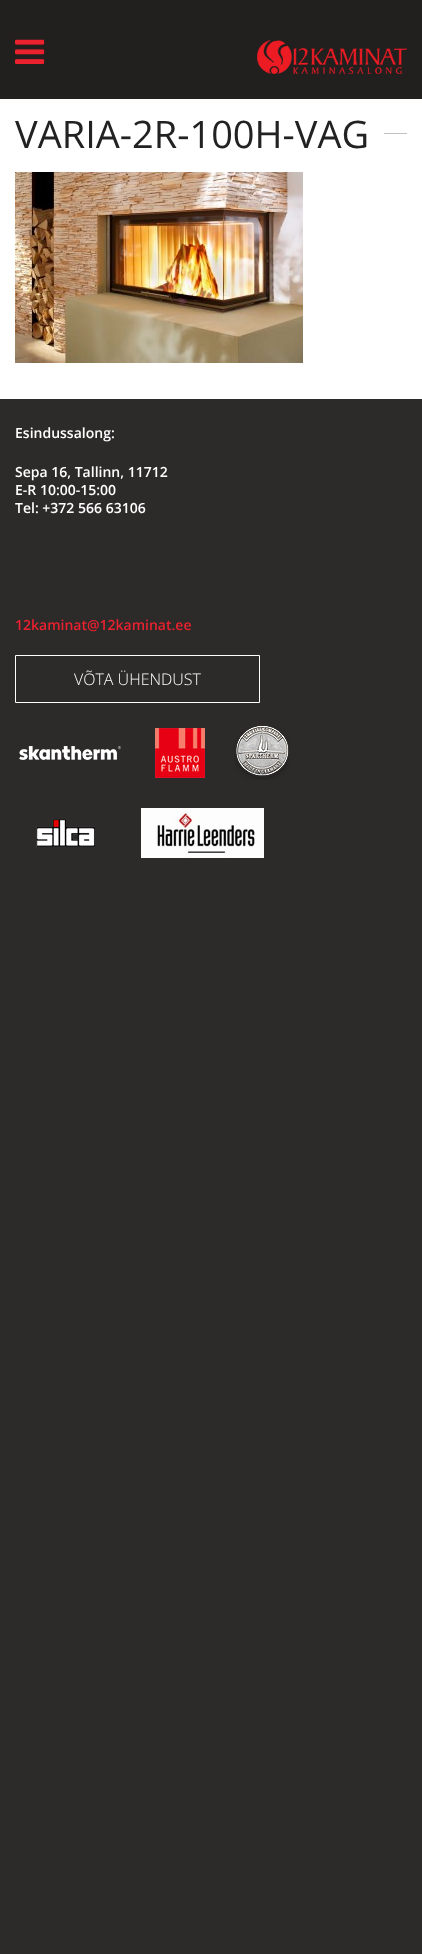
<svg xmlns="http://www.w3.org/2000/svg" width="422" height="1954">
<style>
.a{font:38px Open Sans;fill:#222}
.b{font:600 14px Open Sans;fill:#fff}
.c{font:600 14px Open Sans;fill:#eb212e}
.d{font:300 16px Open Sans;fill:#fff}
</style>
<rect width="100%" height="100%" fill="#2d2a2a"/>
<path fill="#221f1f" d="M0 0h422v99H0z"/>
<image href="1.png" x="257" y="40" width="150" height="34"/>
<image href="2.png" x="15" y="39" width="30" height="25"/>
<path fill="#fff" d="M0 99h422v300H0z"/>
<path fill="#c2c2c2" d="M384 133h23v1H384z"/>
<image href="3.png" x="15" y="172" width="288" height="191"/>
<path fill="none" stroke="#fff" d="M15.5 655.5h244v47H15.5z"/>
<image href="4.png" x="19" y="746" width="102" height="14"/>
<image href="5.png" x="155" y="728" width="50" height="50"/>
<image href="6.png" x="234" y="726" width="56" height="54"/>
<image href="7.png" x="36" y="819" width="59" height="28"/>
<image href="8.png" x="141" y="808" width="123" height="50"/>
<text class="a" x="15" y="148">VARIA-2R-100H-VAG</text>
<text class="b" x="15" y="438">Esindussalong:</text>
<text class="b" x="15" y="477">Sepa 16, Tallinn, 11712</text>
<text class="b" x="15" y="495">E-R 10:00-15:00</text>
<text class="b" x="15" y="513">Tel: +372 566 63106</text>
<text class="c" x="15" y="630">12kaminat@12kaminat.ee</text>
<text class="d" x="74" y="685">VÕTA ÜHENDUST</text>
</svg>
